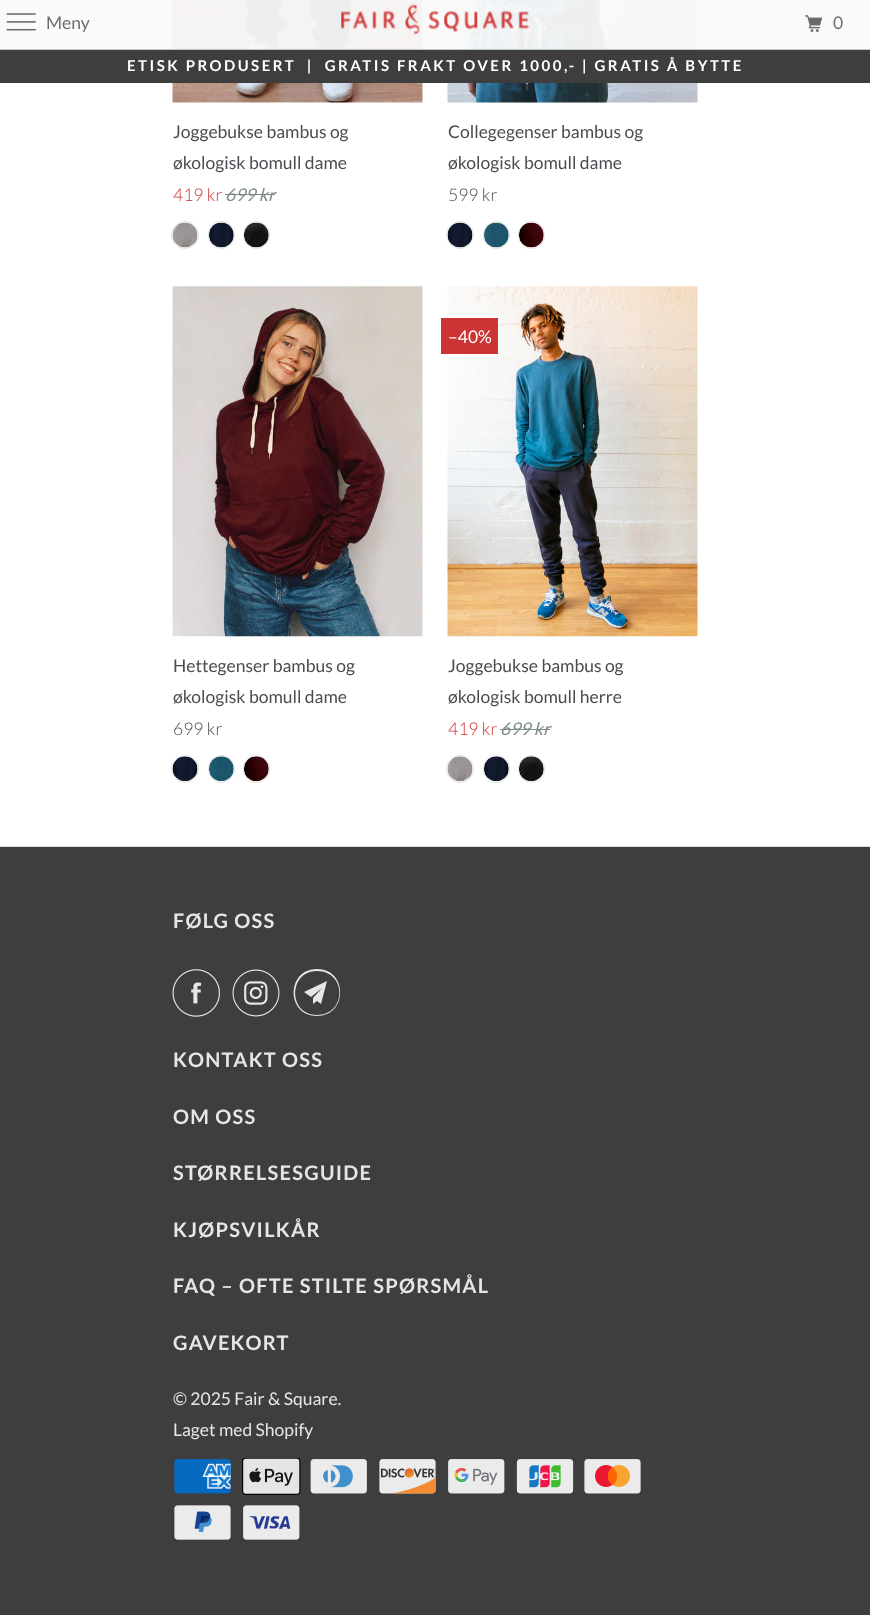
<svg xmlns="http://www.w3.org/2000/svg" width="870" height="1615">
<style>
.a{font:17.5px Lato;fill:#6a6b6c}
.b{font:bold 15px Lato;letter-spacing:2.5px;fill:#fff}
.c{font:17.5px Lato;fill:#494c50}
.d{font:300 17.5px Lato;fill:#c33}
.e{font:italic 17.5px Lato;fill:#7f8c8d}
.f{font:300 17.5px Lato;fill:#494c50}
.g{font:17.5px Lato;fill:#fff}
.h{font:bold 20px Lato;letter-spacing:1.25px;fill:#e6e6e6}
.i{font:17.5px Lato;fill:#e6e6e6}
</style>
<rect width="100%" height="100%" fill="#fff"/>
<image href="4.png" x="172" y="0" width="251" height="103"/>
<image href="8.png" x="447" y="0" width="251" height="103"/>
<path fill="#fafafaf2" d="M0 0h870v50H0z"/>
<path fill="#b8c6c6f2" d="M0 49h870v1H0z"/>
<image href="1.png" x="6" y="13" width="30" height="18"/>
<image href="2.png" x="341" y="4" width="189" height="31"/>
<image href="3.png" x="805" y="15" width="18" height="17"/>
<path fill="#3e3e3e" d="M0 50h870v33H0z"/>
<path fill="#7f8c8d" d="M225 194h50v1H225z"/>
<image href="5.png" x="172" y="222" width="26" height="26"/>
<circle fill="none" stroke="#e2e2e2" cx="185" cy="235" r="13.5"/>
<image href="6.png" x="208" y="222" width="26" height="26"/>
<rect fill="none" stroke="#e2e2e2" x="208.5" y="221.5" width="26" height="27" rx="13"/>
<image href="7.png" x="243" y="222" width="26" height="26"/>
<rect fill="none" stroke="#e2e2e2" x="243.5" y="221.5" width="26" height="27" rx="13"/>
<image href="9.png" x="447" y="222" width="26" height="26"/>
<circle fill="none" stroke="#e2e2e2" cx="460" cy="235" r="13.5"/>
<image href="10.png" x="483" y="222" width="26" height="26"/>
<rect fill="none" stroke="#e2e2e2" x="483.5" y="221.5" width="26" height="27" rx="13"/>
<image href="11.png" x="518" y="222" width="26" height="26"/>
<rect fill="none" stroke="#e2e2e2" x="518.5" y="221.5" width="26" height="27" rx="13"/>
<image href="12.png" x="172" y="286" width="251" height="351"/>
<image href="13.png" x="172" y="756" width="26" height="26"/>
<circle fill="none" stroke="#e2e2e2" cx="185" cy="769" r="13.5"/>
<image href="14.png" x="208" y="756" width="26" height="26"/>
<rect fill="none" stroke="#e2e2e2" x="208.5" y="755.5" width="26" height="27" rx="13"/>
<image href="15.png" x="243" y="756" width="26" height="26"/>
<rect fill="none" stroke="#e2e2e2" x="243.5" y="755.5" width="26" height="27" rx="13"/>
<image href="16.png" x="447" y="286" width="251" height="351"/>
<path fill="#c33" d="M441 318h57v36H441z"/>
<path fill="#7f8c8d" d="M500 729h50v1H500z"/>
<image href="17.png" x="447" y="756" width="26" height="26"/>
<circle fill="none" stroke="#e2e2e2" cx="460" cy="769" r="13.5"/>
<image href="18.png" x="483" y="756" width="26" height="26"/>
<rect fill="none" stroke="#e2e2e2" x="483.5" y="755.5" width="26" height="27" rx="13"/>
<image href="19.png" x="518" y="756" width="26" height="26"/>
<rect fill="none" stroke="#e2e2e2" x="518.5" y="755.5" width="26" height="27" rx="13"/>
<path fill="#3e3e3e" d="M0 847h870v768H0z"/>
<path fill="#ddd" d="M0 846h870v1H0z"/>
<image href="20.png" x="172" y="969" width="48" height="48"/>
<image href="21.png" x="232" y="969" width="48" height="48"/>
<path fill="#e6e6e6" d="M321 1004l-4-3l-4 3v-6l9-10l-11 9l-7-5l23-11zm-4-33c-29 0-29 44 0 44c30 0 30-44 0-44zm0 45c-31 0-31-47 0-47c31 0 31 47 0 47z"/>
<image href="22.png" x="174" y="1459" width="57" height="35"/>
<image href="23.png" x="242" y="1458" width="59" height="37"/>
<image href="24.png" x="310" y="1459" width="57" height="35"/>
<image href="25.png" x="379" y="1459" width="57" height="35"/>
<image href="26.png" x="448" y="1459" width="57" height="35"/>
<image href="27.png" x="516" y="1459" width="58" height="35"/>
<image href="28.png" x="584" y="1459" width="57" height="35"/>
<image href="29.png" x="174" y="1505" width="57" height="35"/>
<image href="30.png" x="243" y="1505" width="57" height="35"/>
<text class="a" x="46" y="29">Meny</text>
<text class="a" x="833" y="29">0</text>
<text class="b" xml:space="preserve" x="127" y="71">ETISK PRODUSERT  |  GRATIS FRAKT OVER 1000,- | GRATIS Å BYTTE</text>
<text class="c" x="173" y="138">Joggebukse bambus og</text>
<text class="c" x="173" y="169">økologisk bomull dame</text>
<text class="d" x="173" y="201">419 kr</text>
<text class="e" x="225" y="201">699 kr</text>
<text class="c" x="448" y="138">Collegegenser bambus og</text>
<text class="c" x="448" y="169">økologisk bomull dame</text>
<text class="f" x="448" y="201">599 kr</text>
<text class="c" x="173" y="672">Hettegenser bambus og</text>
<text class="c" x="173" y="703">økologisk bomull dame</text>
<text class="f" x="173" y="735">699 kr</text>
<text class="g" x="448" y="343">–40%</text>
<text class="c" x="448" y="672">Joggebukse bambus og</text>
<text class="c" x="448" y="703">økologisk bomull herre</text>
<text class="d" x="448" y="735">419 kr</text>
<text class="e" x="500" y="735">699 kr</text>
<text class="h" x="173" y="928">FØLG OSS</text>
<text class="h" x="173" y="1067">KONTAKT OSS</text>
<text class="h" x="173" y="1124">OM OSS</text>
<text class="h" x="173" y="1180">STØRRELSESGUIDE</text>
<text class="h" x="173" y="1237">KJØPSVILKÅR</text>
<text class="h" x="173" y="1293">FAQ – OFTE STILTE SPØRSMÅL</text>
<text class="h" x="173" y="1350">GAVEKORT</text>
<text class="i" x="173" y="1405">© 2025 Fair &amp; Square.</text>
<text class="i" x="173" y="1436">Laget med Shopify</text>
</svg>
